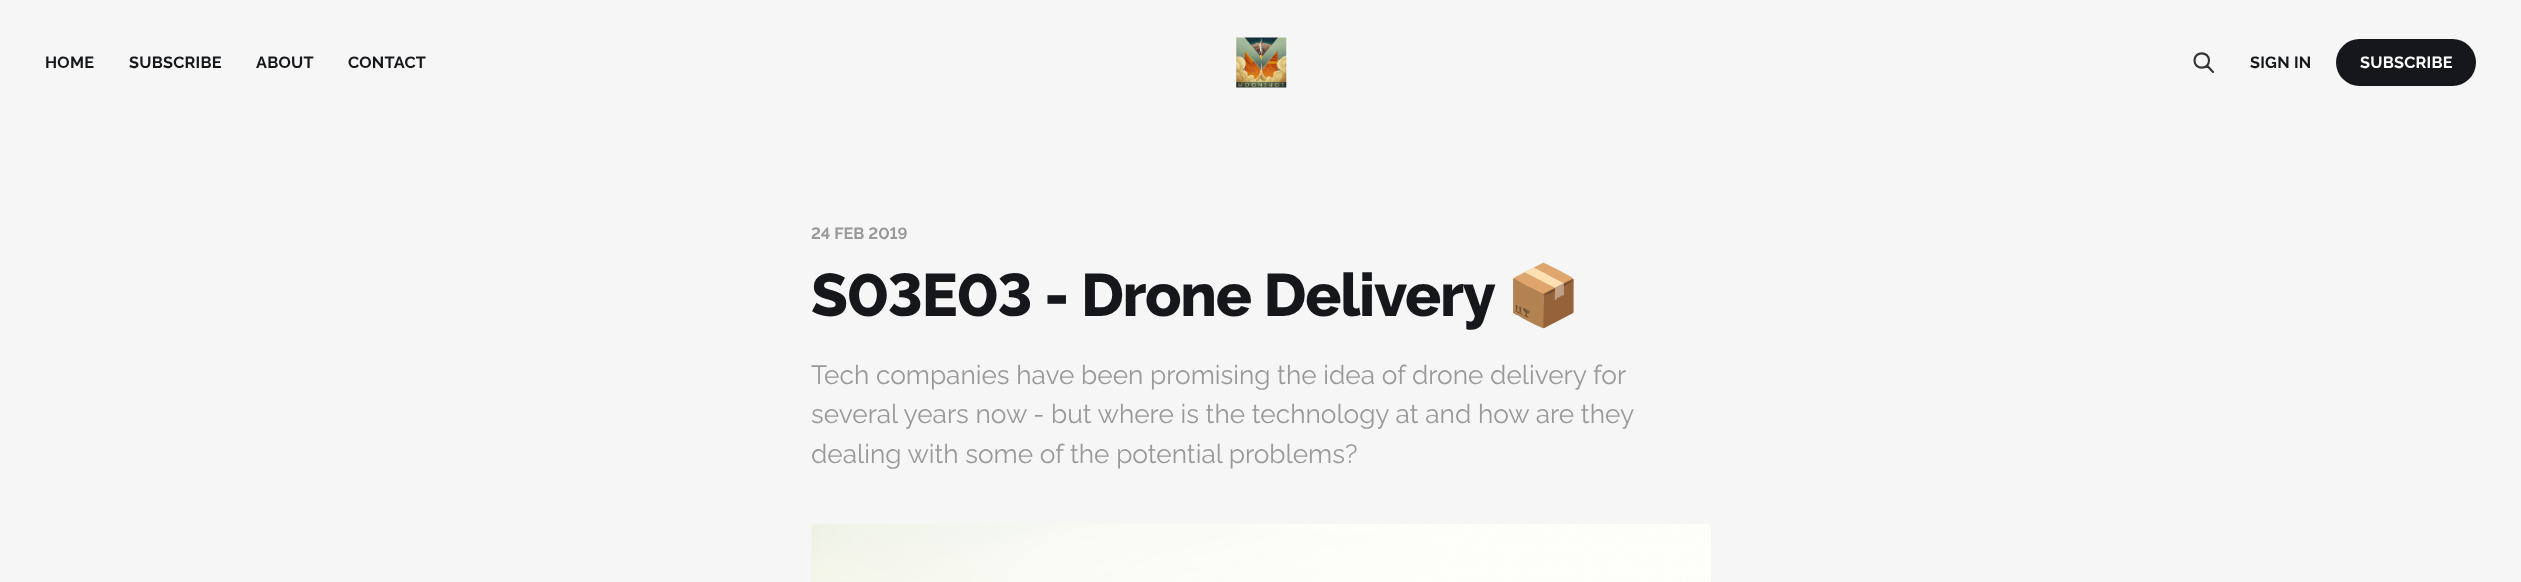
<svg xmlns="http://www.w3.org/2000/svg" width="2521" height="582">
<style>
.a{font:100 16.25px Raleway;letter-spacing:0.25px;fill:#15171a}
.b{font:100 16.25px Raleway;letter-spacing:0.25px;fill:#fff}
.c{font:100 16.25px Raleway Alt;fill:#999}
.d{font:100 60px 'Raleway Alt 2';letter-spacing:-1.25px;fill:#15171a}
.e{font:100 60px 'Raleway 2';letter-spacing:-1.25px;fill:#15171a}
.f{font:bold 60px Noto Color Emoji;letter-spacing:-1.25px;fill:#15171a}
.g{font:100 26.25px 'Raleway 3';fill:#999}
</style>
<rect width="100%" height="100%" fill="#f6f6f6"/>
<image href="1.png" x="1236" y="37" width="51" height="51"/>
<path fill="none" stroke="#333" stroke-width="2.1" stroke-linecap="round" stroke-linejoin="round" d="M2213 72l-6-6.5m2-5c0 9.5-14.5 9.5-14.5 0c0-9.5 14.5-9.5 14.5 0z"/>
<rect fill="#15171a" x="2336" y="39" width="140" height="47" rx="23.5"/>
<image href="2.png" x="811" y="524" width="900" height="58"/>
<text class="a" x="45" y="68">HOME</text>
<text class="a" x="129" y="68">SUBSCRIBE</text>
<text class="a" x="256" y="68">ABOUT</text>
<text class="a" x="348" y="68">CONTACT</text>
<text class="a" x="2250" y="68">SIGN IN</text>
<text class="b" x="2360" y="68">SUBSCRIBE</text>
<text class="c" x="811" y="239">24 FEB 2019</text>
<text class="d" x="811" y="316">S03E03 -</text>
<text class="e" x="1081" y="316">Drone Delivery</text>
<text class="f" x="1506" y="316">📦</text>
<text class="g" x="811" y="384">Tech companies have been promising the idea of drone delivery for</text>
<text class="g" x="811" y="423">several years now - but where is the technology at and how are they</text>
<text class="g" x="811" y="463">dealing with some of the potential problems?</text>
</svg>
